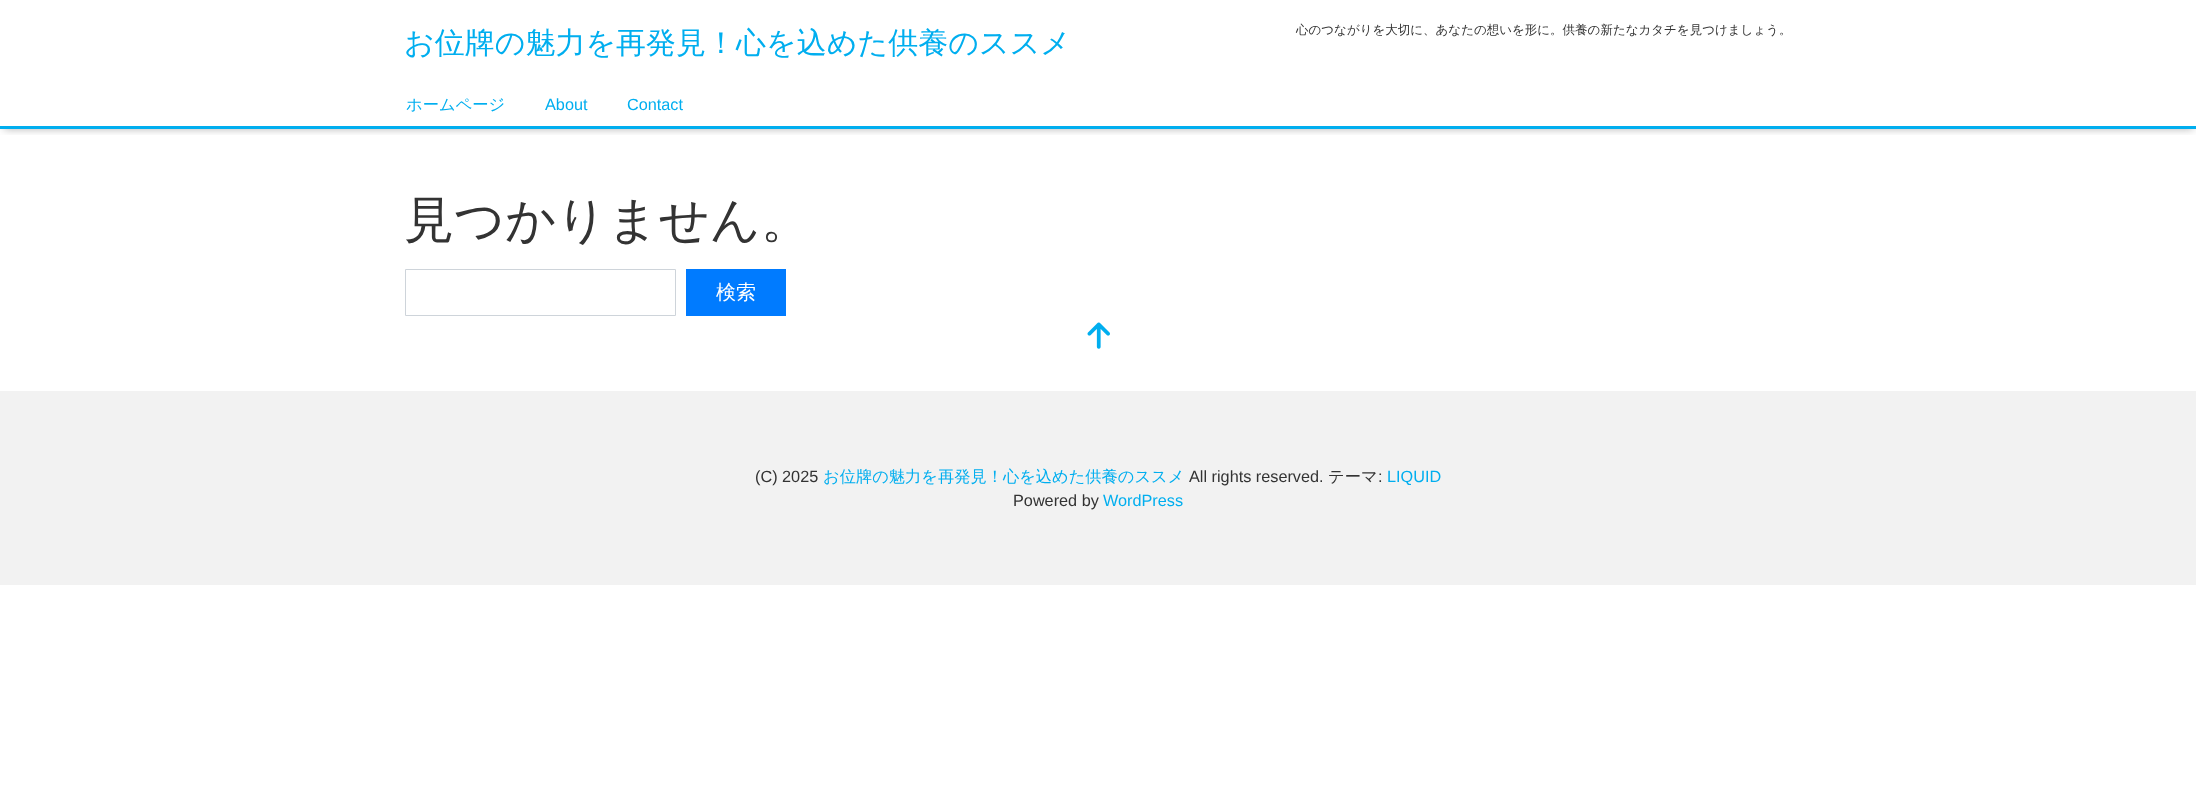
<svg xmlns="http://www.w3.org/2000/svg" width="2196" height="805">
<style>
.a{font:500 30px WenQuanYi Zen Hei;fill:#00aeef}
.b{font:500 12.5px WenQuanYi Zen Hei;fill:#333}
.c{font:500 16.25px WenQuanYi Zen Hei;fill:#00aeef}
.d{font:16.25px Liberation Sans;fill:#00aeef}
.e{font:500 50px WenQuanYi Zen Hei;fill:#333}
.f{font:500 20px WenQuanYi Zen Hei;fill:#fff}
.g{font:16.25px Liberation Sans;fill:#333}
.h{font:500 16.25px WenQuanYi Zen Hei;fill:#333}
</style>
<defs>
<clipPath id="clip1"><path d="M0 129h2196v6H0z"/></clipPath>
</defs>
<rect width="100%" height="100%" fill="#fff"/>
<g clip-path="url(#clip1)">
<path fill="#0000004d" filter="blur(4px)" d="M4 93h2189v36H4z"/>
</g>
<path fill="#00aeef" d="M0 126h2196v3H0z"/>
<path fill="none" stroke="#ced4da" d="M405.5 269.5h270v46H405.5z"/>
<path fill="#007bff" d="M686 269h100v47H686z"/>
<image href="1.png" x="1087" y="322" width="23" height="27"/>
<path fill="#f2f2f2" d="M0 391h2196v194H0z"/>
<text class="a" x="404" y="53">お位牌の魅力を再発見！心を込めた供養のススメ</text>
<text class="b" x="1296" y="34">心のつながりを大切に、あなたの想いを形に。供養の新たなカタチを見つけましょう。</text>
<text class="c" x="406" y="110">ホームページ</text>
<text class="d" x="545" y="110">About</text>
<text class="d" x="627" y="110">Contact</text>
<text class="e" x="404" y="237">見つかりません。</text>
<text class="f" x="716" y="299">検索</text>
<text class="g" x="755" y="482">(C) 2025</text>
<text class="c" x="823" y="482">お位牌の魅力を再発見！心を込めた供養のススメ</text>
<text class="g" x="1189" y="482">All rights reserved.</text>
<text class="h" x="1328" y="482">テーマ</text>
<text class="g" x="1378" y="482">:</text>
<text class="d" x="1387" y="482">LIQUID</text>
<text class="g" x="1013" y="506">Powered by</text>
<text class="d" x="1103" y="506">WordPress</text>
</svg>
